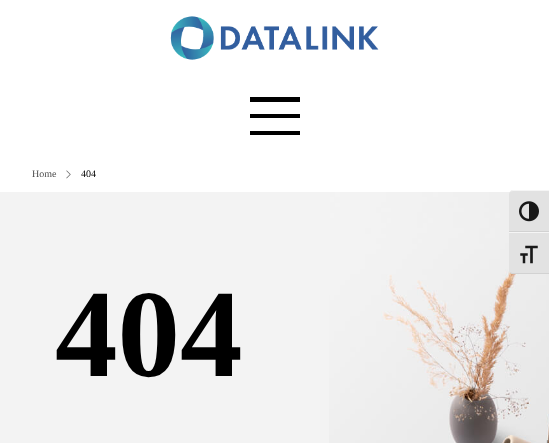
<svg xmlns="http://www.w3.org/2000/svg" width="549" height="443">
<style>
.a{font:10px Liberation Serif;fill:#4d4d4d}
.b{font:10px Liberation Serif;fill:#000}
.c{font:bold 125px Liberation Serif;fill:#000}
</style>
<rect width="100%" height="100%" fill="#fff"/>
<image href="1.png" x="170" y="16" width="209" height="44"/>
<path fill="#000" d="M250 97v5h50v-5zm0 17v4h50v-4zm0 17v4h50v-4z"/>
<image href="2.png" x="66" y="170" width="5" height="9"/>
<path fill="#f3f3f3" d="M0 192h329v251H0z"/>
<image href="3.png" x="329" y="192" width="220" height="251"/>
<path fill="#e2e2e2" d="M513 190h36v42h-40v-38c0-2 2-4 4-4z"/>
<path fill="#f5f5f5" d="M513 191h36v-1h-36c-2 0-4 2-4 4c0-2 2-3 4-3z"/>
<path fill="#d2d2d2" d="M509 231h40v1H509z"/>
<image href="4.png" x="519" y="201" width="20" height="21"/>
<path fill="#e2e2e2" d="M509 232h40v42h-36c-2 0-4-2-4-4z"/>
<path fill="#f5f5f5" d="M509 232h40v1H509z"/>
<path fill="#d2d2d2" d="M549 274v-1h-36c-2 0-4-1-4-3c0 2 2 4 4 4z"/>
<image href="5.png" x="520" y="245" width="18" height="19"/>
<text class="a" x="32" y="177">Home</text>
<text class="b" x="81" y="177">404</text>
<text class="c" x="55" y="376">404</text>
</svg>
